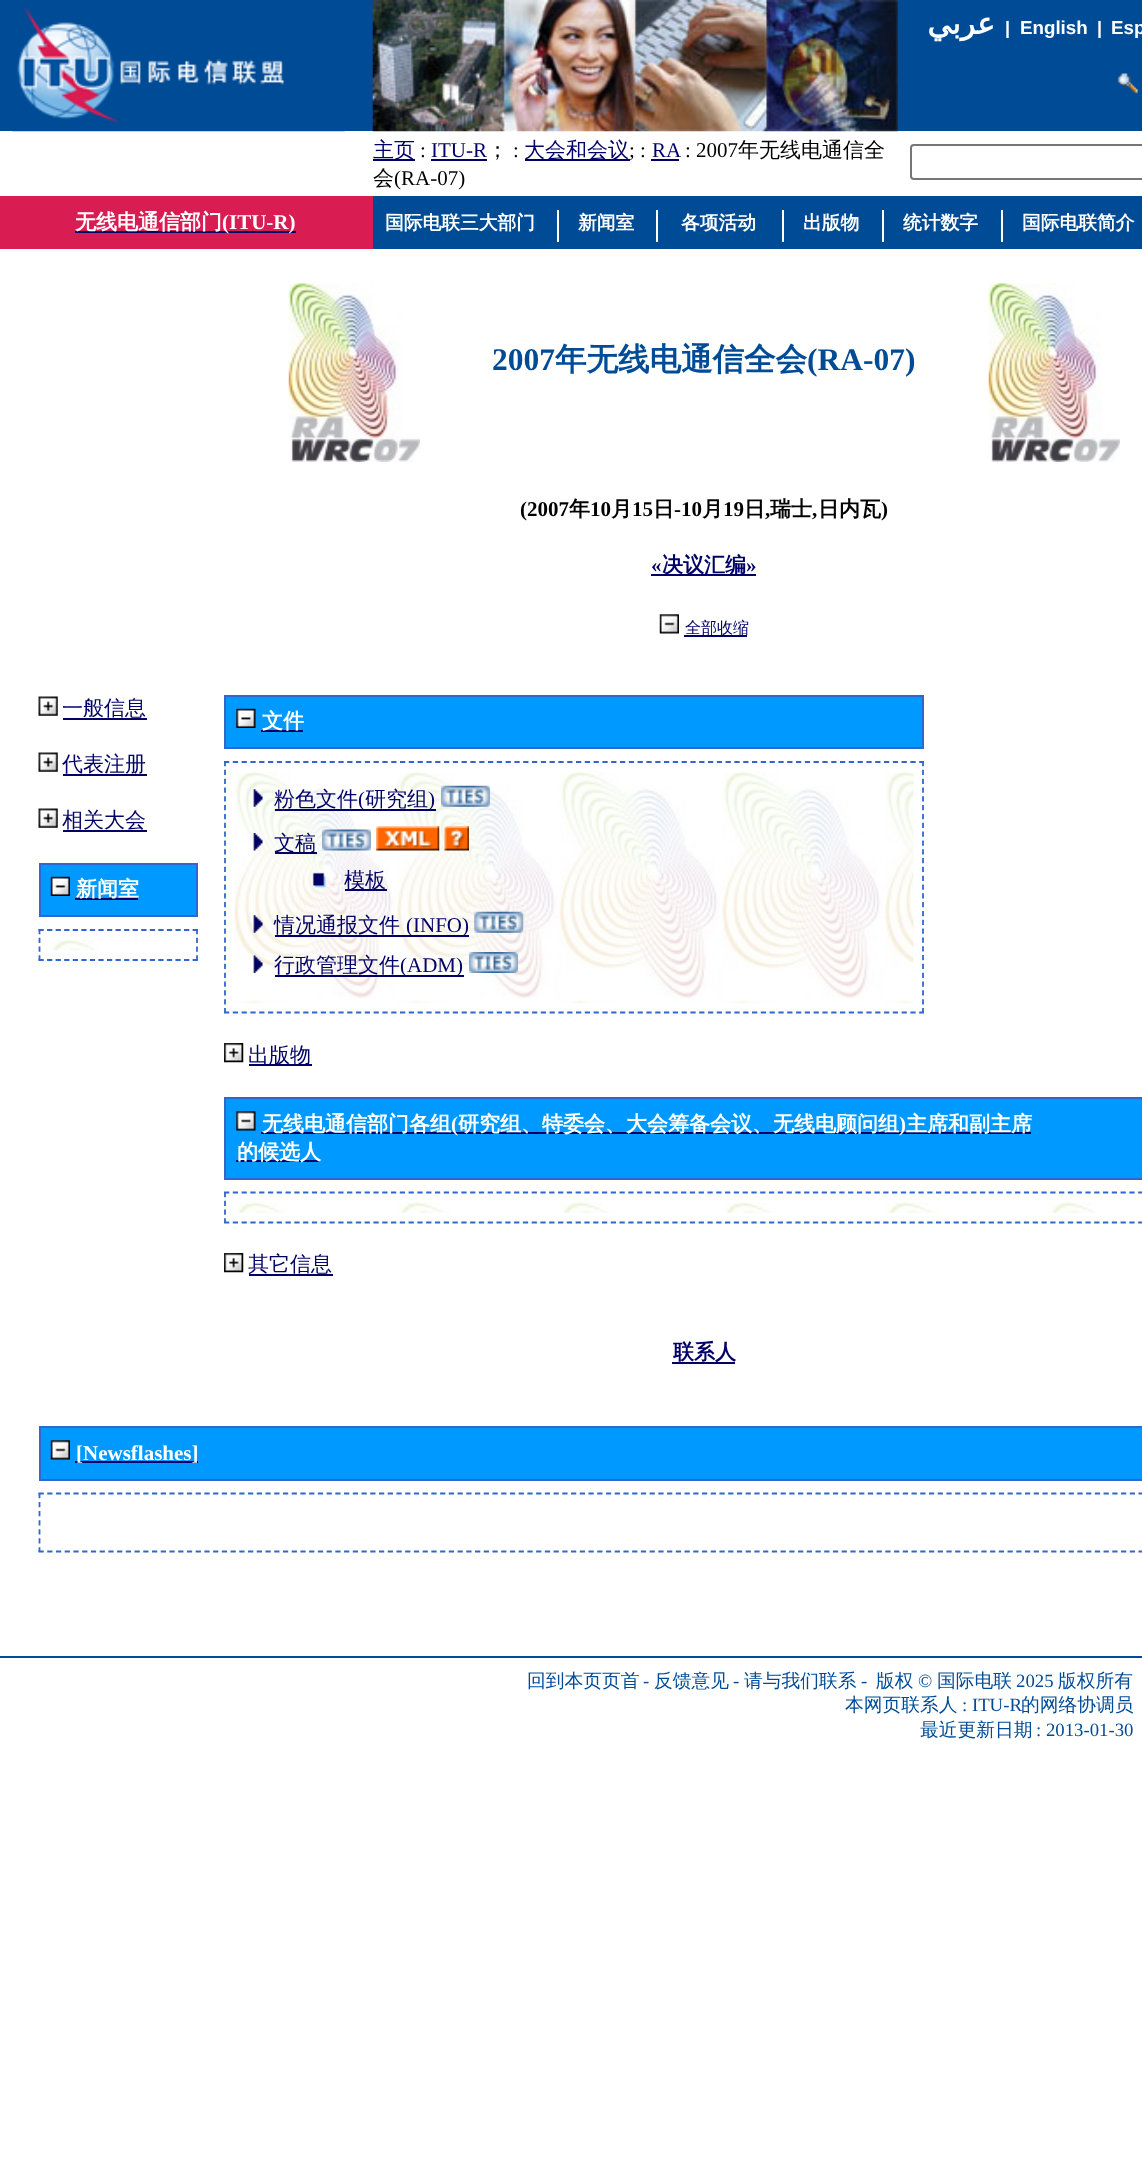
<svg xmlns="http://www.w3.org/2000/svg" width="1142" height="2181">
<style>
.a{font:bold 30px DejaVu Sans;direction:rtl;fill:#fff}
.b{font:bold 18px Liberation Sans;fill:#fff}
.c{font:bold 18.75px Liberation Sans;fill:#fff}
.d{font:500 21px WenQuanYi Zen Hei;fill:#006}
.e{font:21px Liberation Serif;fill:#000}
.f{font:21px Liberation Serif;fill:#006}
.g{font:500 21px WenQuanYi Zen Hei;fill:#000}
.h{font:bold 21px WenQuanYi Zen Hei;fill:#fff}
.i{font:bold 21px Liberation Serif;fill:#fff}
.j{font:bold 31.5px Liberation Serif;fill:#004b96}
.k{font:bold 31.5px WenQuanYi Zen Hei;fill:#004b96}
.l{font:bold 21px Liberation Serif;fill:#000}
.m{font:bold 21px WenQuanYi Zen Hei;fill:#000}
.n{font:bold 21px Liberation Serif;fill:#006}
.o{font:bold 21px WenQuanYi Zen Hei;fill:#006}
.p{font:500 16px WenQuanYi Zen Hei;fill:#006}
.q{font:500 18.75px WenQuanYi Zen Hei;fill:#004b96}
.r{font:18.75px Liberation Serif;fill:#004b96}
.s{font:bold 18.75px WenQuanYi Zen Hei;fill:#fff}
</style>
<rect width="100%" height="100%" fill="#fff"/>
<path fill="#004b96" d="M0 0h1142v131H0z"/>
<image href="1.png" x="12" y="6" width="333" height="126"/>
<image href="2.png" x="372" y="0" width="526" height="132"/>
<image href="3.png" x="1117" y="73" width="21" height="21"/>
<path fill="#006" d="M373 159h42v2H373z"/>
<path fill="#006" d="M431 159h56v2H431z"/>
<path fill="#006" d="M525 159h105v2H525z"/>
<path fill="#006" d="M651 159h28v2H651z"/>
<rect fill="none" stroke="#767676" stroke-width="2" x="911" y="145" width="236" height="34" rx="3"/>
<path fill="#d91d52" d="M0 196h373v53H0z"/>
<path fill="#006" d="M75 231h221v2H75z"/>
<path fill="#004b96" d="M373 196h769v53H373z"/>
<path fill="#004b96" d="M0 1656h1142v2H0z"/>
<image href="4.png" x="288" y="283" width="132" height="179"/>
<image href="5.png" x="988" y="283" width="132" height="179"/>
<path fill="#006" d="M651 574h105v2H651z"/>
<image href="6.png" x="659" y="614" width="20" height="20"/>
<path fill="#006" d="M684 635h63v2H684z"/>
<image href="7.png" x="38" y="696" width="20" height="20"/>
<path fill="#006" d="M63 718h84v2H63z"/>
<image href="7.png" x="38" y="752" width="20" height="20"/>
<path fill="#006" d="M63 774h84v2H63z"/>
<image href="7.png" x="38" y="808" width="20" height="20"/>
<path fill="#006" d="M63 830h84v2H63z"/>
<path fill="#09f" stroke="#36c" stroke-width="2" d="M40 864h157v52H40z"/>
<image href="8.png" x="50" y="876" width="20" height="20"/>
<path fill="#006" d="M75 898h63v2H75z"/>
<path fill="none" stroke="#36c" stroke-width="1.8" stroke-dasharray="5.25 3.31" d="M38.5 930h159.5"/>
<path fill="none" stroke="#36c" stroke-width="1.8" stroke-dasharray="5.25 3.5" d="M197 929v32"/>
<path fill="none" stroke="#36c" stroke-width="1.8" stroke-dasharray="5.25 3.31" d="M38.5 960h159.5"/>
<path fill="none" stroke="#36c" stroke-width="1.8" stroke-dasharray="5.25 3.5" d="M39.5 929v32"/>
<image href="9.png" x="49" y="939" width="48" height="12"/>
<path fill="#09f" stroke="#36c" stroke-width="2" d="M225 696h698v52H225z"/>
<image href="10.png" x="236" y="708" width="20" height="20"/>
<path fill="#006" d="M261 730h42v2H261z"/>
<path fill="none" stroke="#36c" stroke-width="1.8" stroke-dasharray="5.25 3.55" d="M224 762h700"/>
<path fill="none" stroke="#36c" stroke-width="1.8" stroke-dasharray="5.25 3.57" d="M923 761v252"/>
<path fill="none" stroke="#36c" stroke-width="1.8" stroke-dasharray="5.25 3.55" d="M224 1012.5h700"/>
<path fill="none" stroke="#36c" stroke-width="1.8" stroke-dasharray="5.25 3.57" d="M225 761v252"/>
<image href="11.png" x="234" y="772" width="680" height="231"/>
<image href="12.png" x="253" y="789" width="10" height="18"/>
<path fill="#006" d="M275 809h161v2H275z"/>
<image href="13.png" x="441" y="785" width="49" height="22"/>
<image href="14.png" x="253" y="833" width="10" height="18"/>
<path fill="#006" d="M275 852h42v2H275z"/>
<image href="15.png" x="322" y="829" width="49" height="22"/>
<image href="16.png" x="376" y="826" width="64" height="25"/>
<image href="17.png" x="444" y="826" width="25" height="25"/>
<image href="18.png" x="312" y="872" width="14" height="16"/>
<path fill="#006" d="M345 889h42v2H345z"/>
<image href="19.png" x="253" y="915" width="10" height="18"/>
<path fill="#006" d="M275 935h194v2H275z"/>
<image href="20.png" x="474" y="911" width="50" height="22"/>
<image href="21.png" x="253" y="955" width="10" height="18"/>
<path fill="#006" d="M275 975h189v2H275z"/>
<image href="22.png" x="469" y="952" width="49" height="21"/>
<image href="23.png" x="224" y="1043" width="20" height="20"/>
<path fill="#006" d="M249 1064h63v2H249z"/>
<path fill="#09f" stroke="#36c" stroke-width="2" d="M225 1098h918v81H225z"/>
<image href="24.png" x="236" y="1111" width="20" height="20"/>
<path fill="#006" d="M261 1132h770v2H261z"/>
<path fill="#006" d="M236 1160h84v2H236z"/>
<path fill="none" stroke="#36c" stroke-width="1.8" stroke-dasharray="5.25 3.54" d="M224 1192.5h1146"/>
<path fill="none" stroke="#36c" stroke-width="1.8" stroke-dasharray="5.25 3.54" d="M224 1222.5h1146"/>
<path fill="none" stroke="#36c" stroke-width="1.8" stroke-dasharray="5.25 3.5" d="M225 1192v31"/>
<image href="25.png" x="235" y="1202" width="861" height="11"/>
<image href="23.png" x="224" y="1253" width="20" height="20"/>
<path fill="#006" d="M249 1274h84v2H249z"/>
<path fill="#006" d="M672 1362h63v2H672z"/>
<path fill="#09f" stroke="#36c" stroke-width="2" d="M40 1427h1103v53H40z"/>
<image href="26.png" x="50" y="1440" width="20" height="20"/>
<path fill="#006" d="M75 1461h123v2H75z"/>
<path fill="none" stroke="#36c" stroke-width="1.8" stroke-dasharray="5.25 3.48" d="M38.5 1493.5h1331.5"/>
<path fill="none" stroke="#36c" stroke-width="1.8" stroke-dasharray="5.25 3.48" d="M38.5 1551.5h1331.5"/>
<path fill="none" stroke="#36c" stroke-width="1.8" stroke-dasharray="5.25 3.8" d="M39.5 1493v59"/>
<path fill="#fff" d="M557 210h2v32H557z"/>
<path fill="#fff" d="M656 210h2v32H656z"/>
<path fill="#fff" d="M782 210h2v32H782z"/>
<path fill="#fff" d="M882 210h2v32H882z"/>
<path fill="#fff" d="M1001 210h2v32H1001z"/>
<text class="a" x="995" y="34">عربي</text>
<text class="b" x="1005" y="34">|</text>
<text class="c" x="1020" y="34">English</text>
<text class="b" x="1097" y="34">|</text>
<text class="c" x="1111" y="34">Esp</text>
<text class="d" x="373" y="157">主页</text>
<text class="e" x="420" y="157">:</text>
<text class="f" x="431" y="157">ITU-R</text>
<text class="g" x="487" y="157">；</text>
<text class="e" x="513" y="157">:</text>
<text class="d" x="524" y="157">大会和会议</text>
<text class="e" x="629" y="157">; :</text>
<text class="f" x="652" y="157">RA</text>
<text class="e" x="685" y="157">: 2007</text>
<text class="g" x="738" y="157">年无线电通信全</text>
<text class="g" x="373" y="185">会</text>
<text class="e" x="394" y="185">(RA-07)</text>
<text class="h" x="75" y="229">无线电通信部门</text>
<text class="i" x="222" y="229">(ITU-R)</text>
<text class="j" x="492" y="370">2007</text>
<text class="k" x="555" y="370">年无线电通信全会</text>
<text class="j" x="807" y="370">(RA-07)</text>
<text class="l" x="520" y="516">(2007</text>
<text class="m" x="569" y="516">年</text>
<text class="l" x="590" y="516">10</text>
<text class="m" x="611" y="516">月</text>
<text class="l" x="632" y="516">15</text>
<text class="m" x="653" y="516">日</text>
<text class="l" x="674" y="516">-10</text>
<text class="m" x="702" y="516">月</text>
<text class="l" x="723" y="516">19</text>
<text class="m" x="744" y="516">日</text>
<text class="l" x="765" y="516">,</text>
<text class="m" x="770" y="516">瑞士</text>
<text class="l" x="812" y="516">,</text>
<text class="m" x="818" y="516">日内瓦</text>
<text class="l" x="881" y="516">)</text>
<text class="n" x="651" y="572">«</text>
<text class="o" x="662" y="572">决议汇编</text>
<text class="n" x="746" y="572">»</text>
<text class="p" x="685" y="633">全部收缩</text>
<text class="d" x="62" y="715">一般信息</text>
<text class="d" x="62" y="771">代表注册</text>
<text class="d" x="62" y="827">相关大会</text>
<text class="h" x="76" y="896">新闻室</text>
<text class="h" x="262" y="728">文件</text>
<text class="d" x="274" y="806">粉色文件</text>
<text class="f" x="358" y="806">(</text>
<text class="d" x="365" y="806">研究组</text>
<text class="f" x="428" y="806">)</text>
<text class="d" x="274" y="850">文稿</text>
<text class="d" x="344" y="887">模板</text>
<text class="d" x="274" y="932">情况通报文件</text>
<text class="f" x="406" y="932">(INFO)</text>
<text class="d" x="274" y="972">行政管理文件</text>
<text class="f" x="400" y="972">(ADM)</text>
<text class="d" x="248" y="1062">出版物</text>
<text class="h" x="262" y="1131">无线电通信部门各组</text>
<text class="i" x="451" y="1131">(</text>
<text class="h" x="458" y="1131">研究组、特委会、大会筹备会议、无线电顾问组</text>
<text class="i" x="899" y="1131">)</text>
<text class="h" x="906" y="1131">主席和副主席</text>
<text class="h" x="237" y="1159">的候选人</text>
<text class="d" x="248" y="1271">其它信息</text>
<text class="o" x="673" y="1359">联系人</text>
<text class="i" x="76" y="1460">[Newsflashes]</text>
<text class="q" x="527" y="1687">回到本页页首</text>
<text class="r" x="643" y="1687">-</text>
<text class="q" x="654" y="1687">反馈意见</text>
<text class="r" x="733" y="1687">-</text>
<text class="q" x="744" y="1687">请与我们联系</text>
<text class="r" x="861" y="1687">-</text>
<text class="q" x="876" y="1687">版权</text>
<text class="r" x="918" y="1687">©</text>
<text class="q" x="937" y="1687">国际电联</text>
<text class="r" x="1016" y="1687">2025</text>
<text class="q" x="1058" y="1687">版权所有</text>
<text class="q" x="845" y="1711">本网页联系人</text>
<text class="r" x="962" y="1711">: ITU-R</text>
<text class="q" x="1021" y="1711">的网络协调员</text>
<text class="q" x="920" y="1736">最近更新日期</text>
<text class="r" x="1036" y="1736">: 2013-01-30</text>
<text class="s" x="385" y="229">国际电联三大部门</text>
<text class="s" x="578" y="229">新闻室</text>
<text class="s" x="681" y="229">各项活动</text>
<text class="s" x="803" y="229">出版物</text>
<text class="s" x="903" y="229">统计数字</text>
<text class="s" x="1022" y="229">国际电联简介</text>
</svg>
